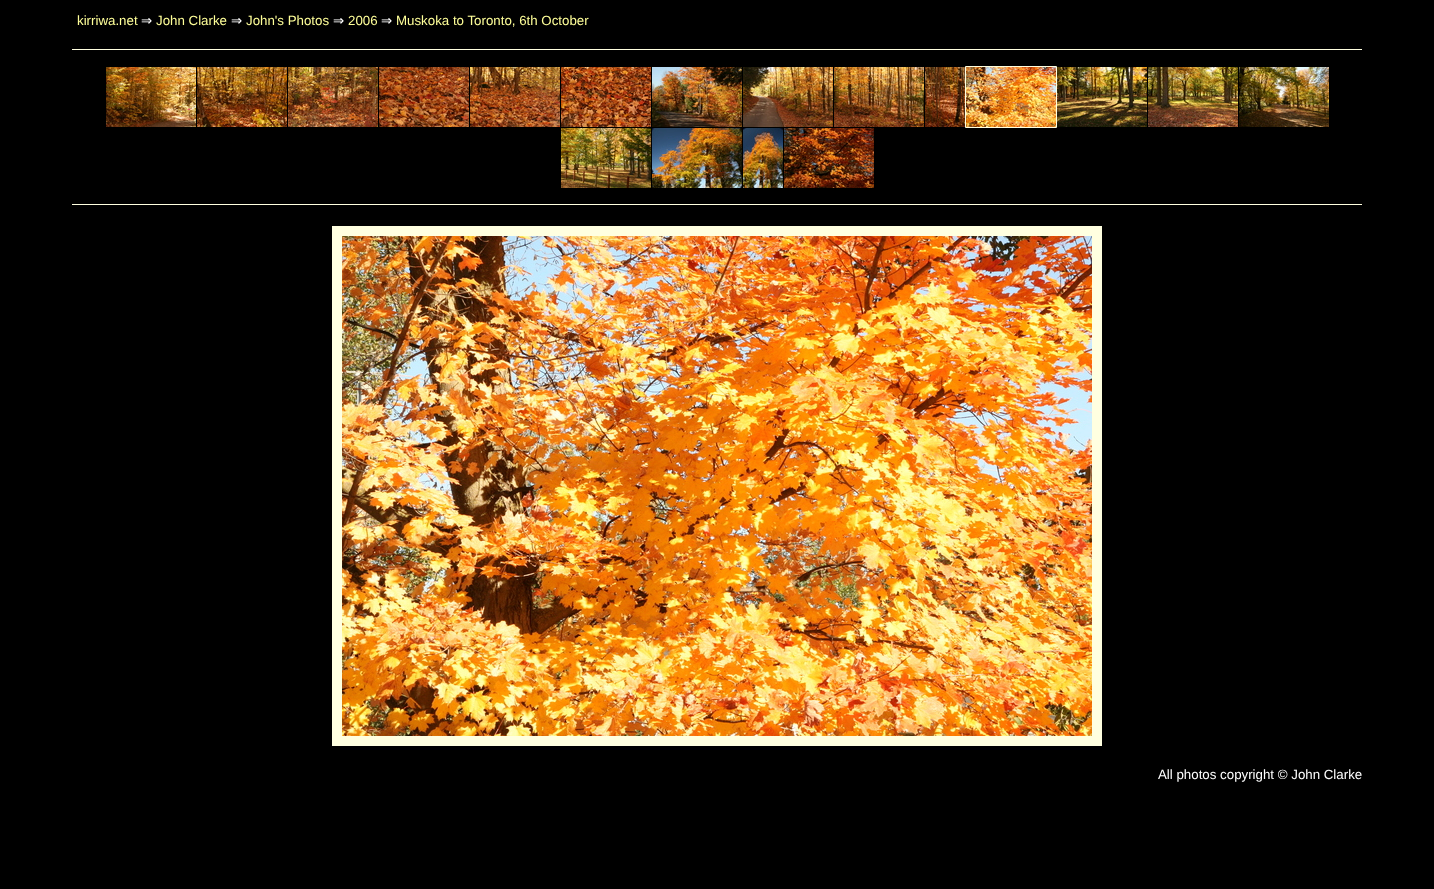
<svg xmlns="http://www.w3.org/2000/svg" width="1434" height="889">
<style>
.a{font:13.3px Liberation Sans;fill:#ff9}
.b{font:13.3px DejaVu Sans;fill:#fff}
.c{font:13.3px Liberation Sans;fill:#fff}
</style>
<rect width="100%" height="100%" fill="#000"/>
<path fill="#ffffe0" d="M72 49h1290v1H72z"/>
<path fill="#ffffe0" d="M72 204h1290v1H72z"/>
<image href="1.png" x="106" y="67" width="90" height="60"/>
<image href="2.png" x="197" y="67" width="90" height="60"/>
<image href="3.png" x="288" y="67" width="90" height="60"/>
<image href="4.png" x="379" y="67" width="90" height="60"/>
<image href="5.png" x="470" y="67" width="90" height="60"/>
<image href="6.png" x="561" y="67" width="90" height="60"/>
<image href="7.png" x="652" y="67" width="90" height="60"/>
<image href="8.png" x="743" y="67" width="90" height="60"/>
<image href="9.png" x="834" y="67" width="90" height="60"/>
<image href="10.png" x="925" y="67" width="40" height="60"/>
<path fill="none" stroke="#ffffe0" d="M965.5 66.5h91v61H965.5z"/>
<image href="11.png" x="966" y="67" width="90" height="60"/>
<image href="12.png" x="1057" y="67" width="90" height="60"/>
<image href="13.png" x="1148" y="67" width="90" height="60"/>
<image href="14.png" x="1239" y="67" width="90" height="60"/>
<image href="15.png" x="561" y="128" width="90" height="60"/>
<image href="16.png" x="652" y="128" width="90" height="60"/>
<image href="17.png" x="743" y="128" width="40" height="60"/>
<image href="18.png" x="784" y="128" width="90" height="60"/>
<path fill="none" stroke="#ffffe0" stroke-width="10" d="M337 231h760v510H337z"/>
<image href="19.png" x="342" y="236" width="750" height="500"/>
<text class="a" x="77" y="25">kirriwa.net</text>
<text class="b" x="141" y="25">⇒</text>
<text class="a" x="156" y="25">John Clarke</text>
<text class="b" x="231" y="25">⇒</text>
<text class="a" x="246" y="25">John's Photos</text>
<text class="b" x="333" y="25">⇒</text>
<text class="a" x="348" y="25">2006</text>
<text class="b" x="381" y="25">⇒</text>
<text class="a" x="396" y="25">Muskoka to Toronto, 6th October</text>
<text class="c" x="1158" y="779">All photos copyright © John Clarke</text>
</svg>
